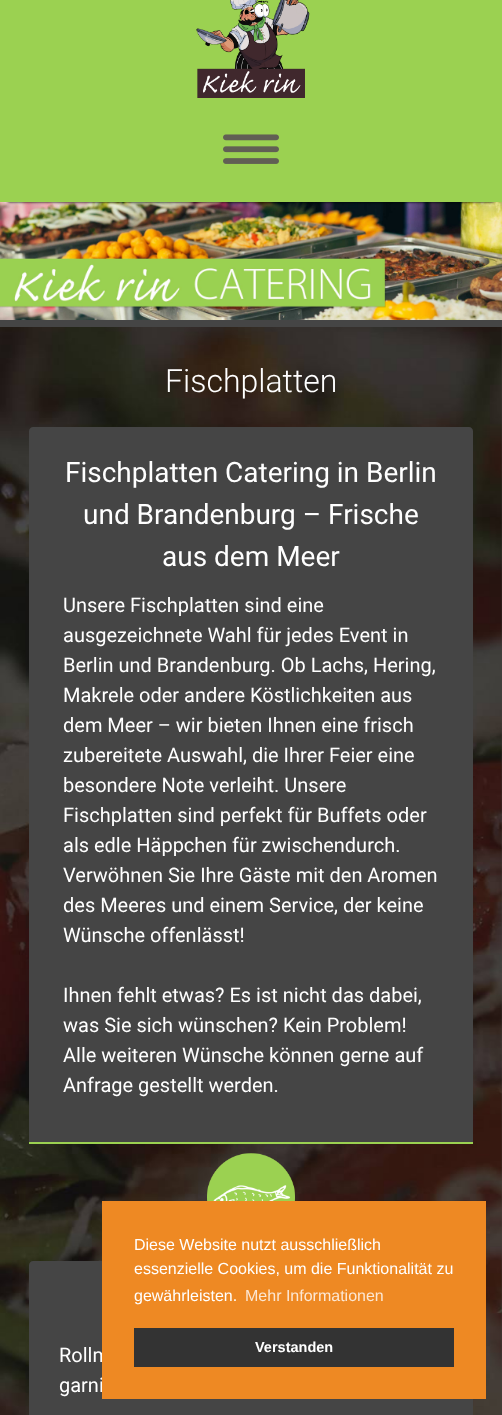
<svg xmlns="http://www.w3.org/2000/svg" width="502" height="1415">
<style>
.a{font:300 32px Roboto;fill:#fff}
.b{font:28px Roboto;fill:#fff}
.c{font:20px Roboto;fill:#fff}
.d{font:16px Liberation Sans;fill:#fff}
.e{font:16px Liberation Sans;fill:#fce7d3}
.f{font:bold 14.5px Liberation Sans;fill:#fff}
</style>
<defs>
<clipPath id="clip1"><path d="M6 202h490v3H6z"/></clipPath>
</defs>
<rect width="100%" height="100%" fill="#454545"/>
<path fill="#9bd151" d="M0 0h502v202H0z"/>
<image href="3.png" x="0" y="202" width="502" height="118"/>
<g clip-path="url(#clip1)">
<path fill="#000" filter="blur(1.5px)" d="M8 -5h486v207H8z"/>
</g>
<image href="1.png" x="196" y="0" width="114" height="98"/>
<image href="2.png" x="223" y="134" width="56" height="30"/>
<image href="4.png" x="0" y="327" width="502" height="1088"/>
<path fill="#454545" d="M33 427h436c2 0 4 2 4 4v713h-444v-713c0-2 2-4 4-4z"/>
<path fill="#9bd151" d="M29 1142h444v2H29z"/>
<image href="5.png" x="207" y="1153" width="88" height="48"/>
<path fill="#454545" d="M33 1261h436c2 0 4 2 4 4v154h-444v-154c0-2 2-4 4-4z"/>
<text class="a" x="165" y="392">Fischplatten</text>
<text class="b" x="65" y="482">Fischplatten Catering in Berlin</text>
<text class="b" x="83" y="524">und Brandenburg – Frische</text>
<text class="b" x="162" y="566">aus dem Meer</text>
<text class="c" x="63" y="612">Unsere Fischplatten sind eine</text>
<text class="c" x="63" y="642">ausgezeichnete Wahl für jedes Event in</text>
<text class="c" x="63" y="672">Berlin und Brandenburg. Ob Lachs, Hering,</text>
<text class="c" x="63" y="702">Makrele oder andere Köstlichkeiten aus</text>
<text class="c" x="63" y="732">dem Meer – wir bieten Ihnen eine frisch</text>
<text class="c" x="63" y="762">zubereitete Auswahl, die Ihrer Feier eine</text>
<text class="c" x="63" y="792">besondere Note verleiht. Unsere</text>
<text class="c" x="63" y="822">Fischplatten sind perfekt für Buffets oder</text>
<text class="c" x="63" y="852">als edle Häppchen für zwischendurch.</text>
<text class="c" x="63" y="882">Verwöhnen Sie Ihre Gäste mit den Aromen</text>
<text class="c" x="63" y="912">des Meeres und einem Service, der keine</text>
<text class="c" x="63" y="942">Wünsche offenlässt!</text>
<text class="c" x="63" y="1002">Ihnen fehlt etwas? Es ist nicht das dabei,</text>
<text class="c" x="63" y="1032">was Sie sich wünschen? Kein Problem!</text>
<text class="c" x="63" y="1062">Alle weiteren Wünsche können gerne auf</text>
<text class="c" x="63" y="1092">Anfrage gestellt werden.</text>
<text class="c" x="59" y="1362">Rollm</text>
<text class="c" x="59" y="1392">garni</text>
<path fill="#ee8923" d="M102 1201h384v198H102z"/>
<text class="d" x="134" y="1250">Diese Website nutzt ausschließlich</text>
<text class="d" x="134" y="1274">essenzielle Cookies, um die Funktionalität zu</text>
<text class="d" x="134" y="1301">gewährleisten.</text>
<text class="e" x="245" y="1301">Mehr Informationen</text>
<path fill="#333" d="M134 1328h320v39H134z"/>
<text class="f" x="255" y="1352">Verstanden</text>
</svg>
